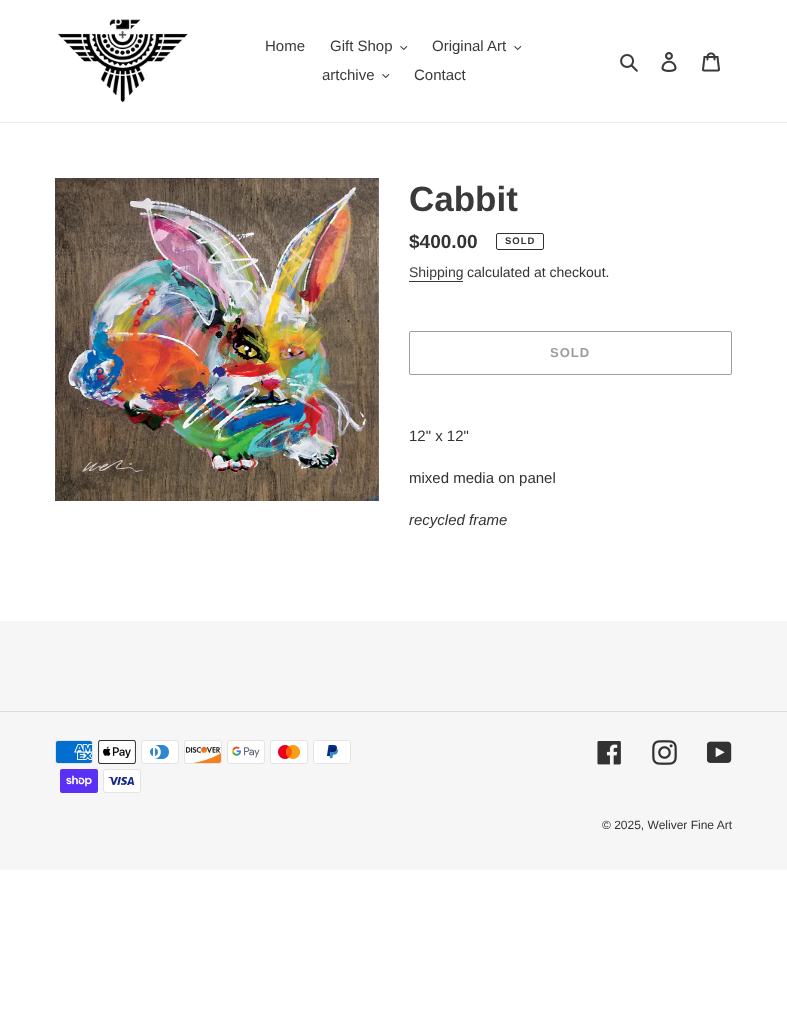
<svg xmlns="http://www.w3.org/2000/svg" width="787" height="1015">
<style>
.a{font:15px Liberation Sans;fill:#3a3a3a}
.b{font:bold 35px Liberation Sans;fill:#3a3a3a}
.c{font:bold 19px Liberation Sans;fill:#333232}
.d{font:bold 9.5px Liberation Sans;letter-spacing:1px;fill:#333232}
.e{font:14px Liberation Sans;fill:#3a3a3a}
.f{font:14px Liberation Sans;fill:#333232}
.g{font:bold 13px Liberation Sans;letter-spacing:1px;fill:#9d9d9d}
.h{font:15px Liberation Sans;fill:#333232}
.i{font:italic 15px Liberation Sans;fill:#333232}
.j{font:12px Liberation Sans;fill:#333232}
</style>
<rect width="100%" height="100%" fill="#fff"/>
<path fill="#ebebeb" d="M0 122h787v1H0z"/>
<image href="1.png" x="58" y="19" width="130" height="84"/>
<image href="2.png" x="400" y="46" width="8" height="4"/>
<image href="2.png" x="514" y="46" width="8" height="4"/>
<image href="2.png" x="382" y="74" width="8" height="4"/>
<image href="3.png" x="620" y="54" width="18" height="18"/>
<image href="4.png" x="661" y="52" width="16" height="20"/>
<image href="5.png" x="702" y="52" width="18" height="20"/>
<image href="6.png" x="55" y="178" width="324" height="323"/>
<rect fill="none" stroke="#333232" x="496.5" y="233.5" width="47" height="16" rx="1.5"/>
<path fill="#3a3a3a" d="M409 281h54v1H409z"/>
<rect fill="none" stroke="#9d9d9d" x="409.5" y="331.5" width="322" height="43" rx="1.5"/>
<path fill="#f6f6f6" d="M0 621h787v249H0z"/>
<path fill="#ddd" d="M0 711h787v1H0z"/>
<image href="7.png" x="55" y="740" width="38" height="24"/>
<image href="8.png" x="98" y="740" width="38" height="24"/>
<image href="9.png" x="141" y="740" width="38" height="24"/>
<image href="10.png" x="184" y="740" width="38" height="24"/>
<image href="11.png" x="227" y="740" width="38" height="24"/>
<image href="12.png" x="270" y="740" width="38" height="24"/>
<image href="13.png" x="313" y="740" width="38" height="24"/>
<image href="14.png" x="60" y="769" width="38" height="24"/>
<image href="15.png" x="103" y="769" width="38" height="24"/>
<image href="16.png" x="597" y="741" width="24" height="24"/>
<image href="17.png" x="652" y="740" width="25" height="25"/>
<image href="18.png" x="707" y="741" width="25" height="22"/>
<text class="a" x="265" y="51">Home</text>
<text class="a" x="330" y="51">Gift Shop</text>
<text class="a" x="432" y="51">Original Art</text>
<text class="a" x="322" y="80">artchive</text>
<text class="a" x="414" y="80">Contact</text>
<text class="b" x="409" y="211">Cabbit</text>
<text class="c" x="409" y="248">$400.00</text>
<text class="d" x="505" y="244">SOLD</text>
<text class="e" x="409" y="277">Shipping</text>
<text class="f" x="467" y="277">calculated at checkout.</text>
<text class="g" x="550" y="357">SOLD</text>
<text class="h" x="409" y="441">12" x 12"</text>
<text class="h" x="409" y="483">mixed media on panel</text>
<text class="i" x="409" y="525">recycled frame</text>
<text class="j" x="602" y="829">© 2025, Weliver Fine Art</text>
</svg>
